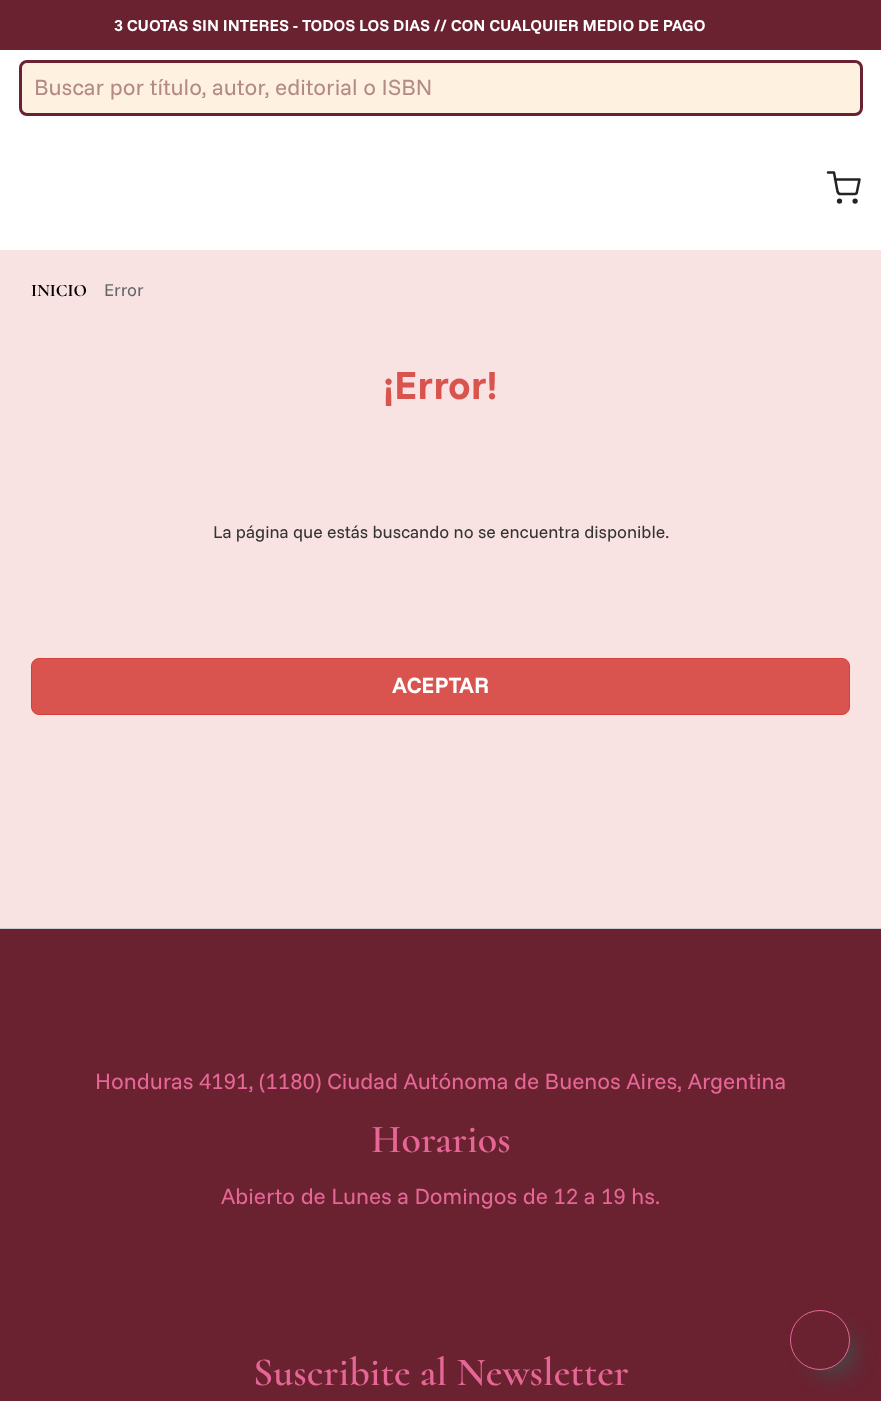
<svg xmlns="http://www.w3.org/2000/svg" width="881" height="1401">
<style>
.a{font:bold 16.25px Funnel Sans;fill:#fff}
.b{font:22.5px Funnel Sans;fill:#b48a89}
.c{font:bold 17.5px Cormorant;fill:#000}
.d{font:17.5px Funnel Sans;fill:#666}
.e{font:bold 40px Funnel Sans;fill:#d9534f}
.f{font:17.5px Funnel Sans;fill:#333}
.g{font:bold 22.5px Funnel Sans;fill:#fff}
.h{font:22.5px Funnel Sans;fill:#e66695}
.i{font:600 40px Cormorant;fill:#e66695}
</style>
<rect width="100%" height="100%" fill="#f9e2e2"/>
<path fill="#6a2231" d="M0 0h881v50H0z"/>
<path fill="#fff" d="M0 50h881v200H0z"/>
<rect fill="#fef1e0" stroke="#6a2231" stroke-width="3" x="20.5" y="61.5" width="841" height="53" rx="6.5"/>
<path fill="none" stroke="#232323" stroke-width="2.5" stroke-linecap="round" stroke-linejoin="round" d="M828 172.5h6l3.5 19c.5 1.5 1.5 2.5 3 2.5h14c1.5 0 2.5-1 2.5-2.5l2.5-12h-24.5"/>
<circle fill="none" stroke="#232323" stroke-width="2.5" cx="839.5" cy="201.1" r="1.4"/>
<circle fill="none" stroke="#232323" stroke-width="2.5" cx="855.1" cy="201.1" r="1.4"/>
<rect fill="#d9534f" stroke="#d43f3a" x="31.5" y="658.5" width="818" height="56" rx="7.5"/>
<path fill="#6a2231" d="M0 929h881v472H0z"/>
<path fill="#ccc" d="M0 928h881v1H0z"/>
<rect fill="#464646" filter="blur(9.5px)" x="810" y="1330" width="45" height="45" rx="22.5"/>
<circle fill="#6a2231" stroke="#e66695" cx="820" cy="1340" r="29.5"/>
<text class="a" x="114" y="31">3 CUOTAS SIN INTERES - TODOS LOS DIAS // CON CUALQUIER MEDIO DE PAGO</text>
<text class="b" x="34" y="95">Buscar por título, autor, editorial o ISBN</text>
<text class="c" x="31" y="296">INICIO</text>
<text class="d" x="104" y="296">Error</text>
<text class="e" x="383" y="399">¡Error!</text>
<text class="f" x="213" y="538">La página que estás buscando no se encuentra disponible.</text>
<text class="g" x="392" y="693">ACEPTAR</text>
<text class="h" x="95" y="1089">Honduras 4191, (1180) Ciudad Autónoma de Buenos Aires, Argentina</text>
<text class="i" x="371" y="1152">Horarios</text>
<text class="h" x="221" y="1204">Abierto de Lunes a Domingos de 12 a 19 hs.</text>
<text class="i" x="253" y="1385">Suscribite al Newsletter</text>
</svg>
